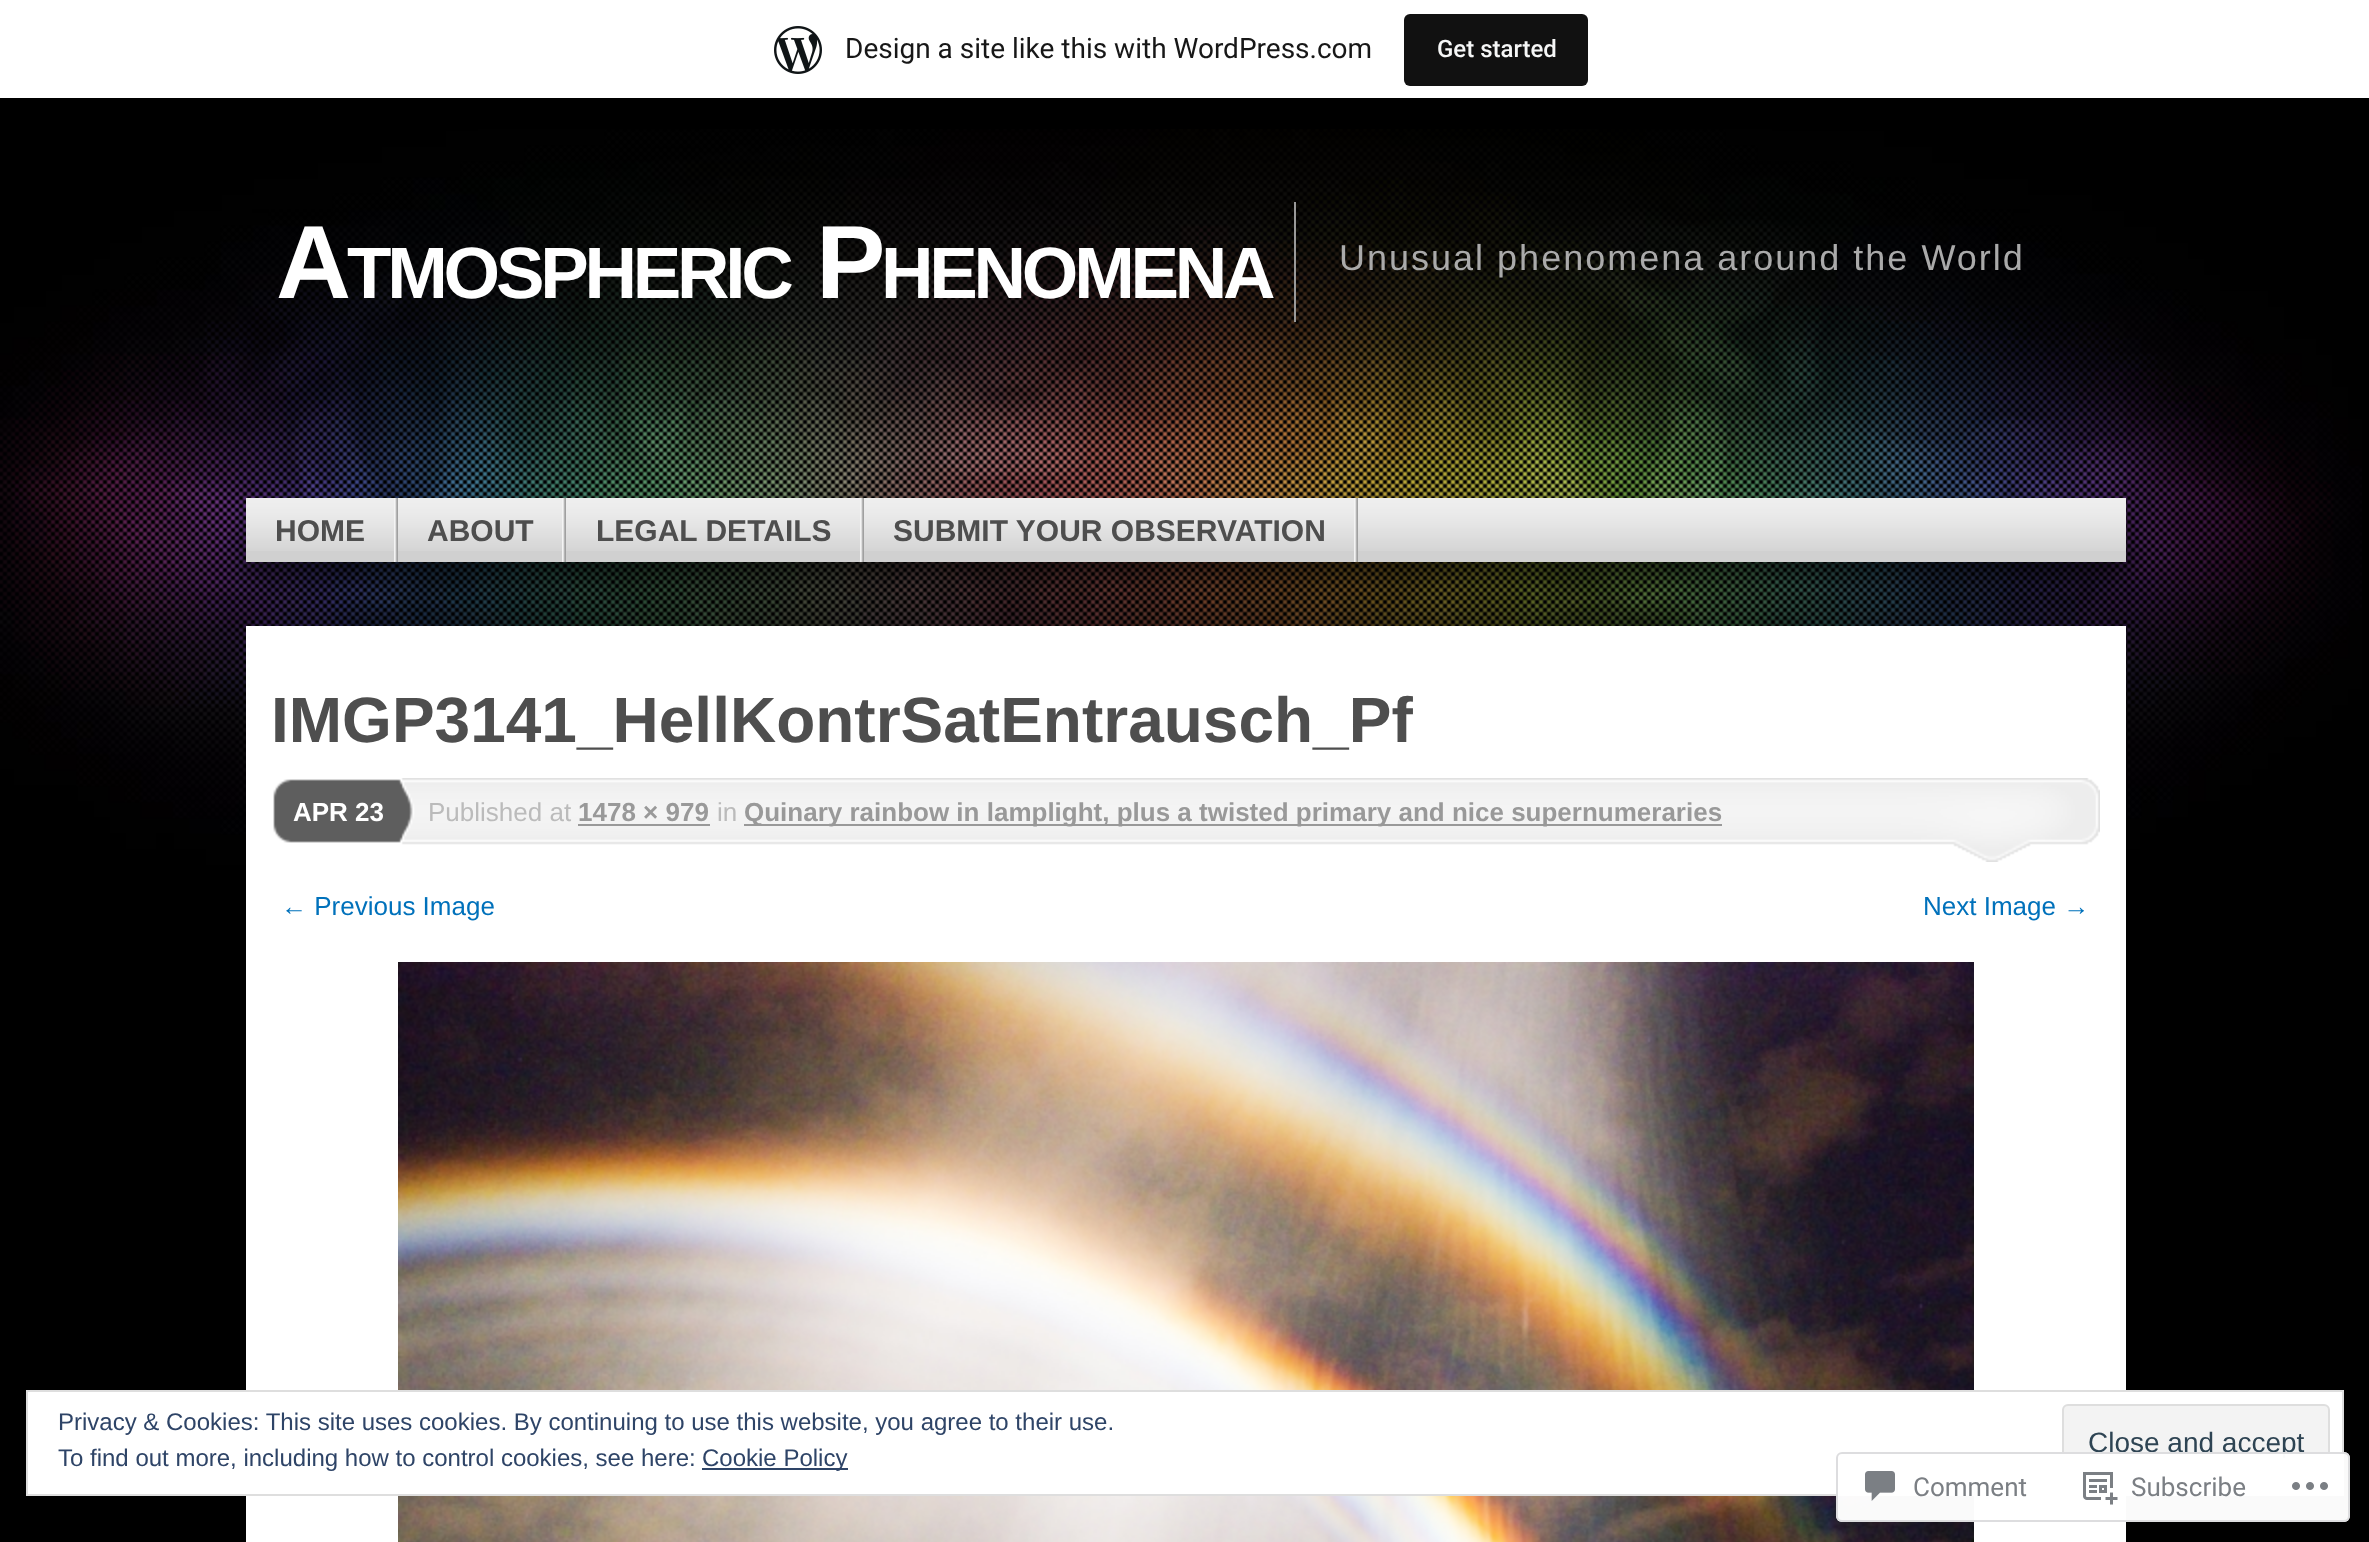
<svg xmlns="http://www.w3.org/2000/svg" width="2369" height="1542">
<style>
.a{font:28px Roboto;fill:#171717}
.b{font:500 24px Roboto;fill:#f6f7f7}
.c{font:bold 104px Liberation Sans;letter-spacing:-4.25px;fill:#fff}
.d{font:bold 72.75px Liberation Sans;letter-spacing:-4.25px;fill:#fff}
.e{font:36px Liberation Sans;letter-spacing:2px;fill:#aaa}
.f{font:bold 30px Liberation Sans;fill:#4e4e4e}
.g{font:bold 64px Liberation Sans;fill:#4e4e4e}
.h{font:bold 26px Liberation Sans;fill:#fff}
.i{font:26px Liberation Sans;fill:#bbb}
.j{font:bold 26px Liberation Sans;fill:#999}
.k{font:26px Liberation Sans;fill:#0071bb}
.l{font:24px Liberation Sans;fill:#2e4467}
.m{font:28px Liberation Sans;fill:#2e4453}
.n{font:26px Roboto;fill:#7b7f84}
</style>
<rect width="100%" height="100%" fill="#000"/>
<path fill="#fff" d="M0 0h2369v98H0z"/>
<image href="1.png" x="774" y="26" width="48" height="48"/>
<rect fill="#111" x="1404" y="14" width="184" height="72" rx="6"/>
<image href="2.png" x="0" y="129" width="2362" height="742"/>
<path fill="#999" d="M1294 202h2v120H1294z"/>
<path fill="#00000099" filter="blur(14px)" d="M246 514h1880v64H246z"/>
<path fill="#d0d0d0" d="M246 551h1880v11H246z"/>
<image href="3.png" x="246" y="498" width="1880" height="53"/>
<image href="4.png" x="394" y="498" width="4" height="64"/>
<image href="4.png" x="562" y="498" width="4" height="64"/>
<image href="4.png" x="860" y="498" width="4" height="64"/>
<image href="4.png" x="1354" y="498" width="4" height="64"/>
<path fill="#fff" d="M246 626h1880v916H246z"/>
<image href="5.png" x="273" y="779" width="22" height="64"/>
<image href="6.png" x="295" y="778" width="121" height="67"/>
<image href="7.png" x="416" y="778" width="1684" height="84"/>
<path fill="#999" d="M578 824h132v2H578z"/>
<path fill="#999" d="M744 824h978v2H744z"/>
<image href="8.png" x="398" y="962" width="1576" height="580"/>
<path fill="#fff" stroke="#dedede" stroke-width="2" d="M27 1391h2316v104H27z"/>
<path fill="#2e4467" d="M702 1468h146v2H702z"/>
<rect fill="#f3f3f3" stroke="#dedede" stroke-width="2" x="2063" y="1405" width="266" height="76" rx="5"/>
<text class="a" x="845" y="58">Design a site like this with WordPress.com</text>
<text class="b" x="1437" y="57">Get started</text>
<text class="c" x="276" y="298">A</text>
<text class="d" x="347" y="298">TMOSPHERIC</text>
<text class="c" x="816" y="298">P</text>
<text class="d" x="881" y="298">HENOMENA</text>
<text class="e" x="1339" y="270">Unusual phenomena around the World</text>
<text class="f" x="275" y="541">HOME</text>
<text class="f" x="427" y="541">ABOUT</text>
<text class="f" x="596" y="541">LEGAL DETAILS</text>
<text class="f" x="893" y="541">SUBMIT YOUR OBSERVATION</text>
<text class="g" x="271" y="742">IMGP3141_HellKontrSatEntrausch_Pf</text>
<text class="h" x="293" y="821">APR 23</text>
<text class="i" x="428" y="821">Published at</text>
<text class="j" x="578" y="821">1478 × 979</text>
<text class="i" x="717" y="821">in</text>
<text class="j" x="744" y="821">Quinary rainbow in lamplight, plus a twisted primary and nice supernumeraries</text>
<text class="k" x="281" y="915">← Previous Image</text>
<text class="k" x="1923" y="915">Next Image →</text>
<text class="l" x="58" y="1430">Privacy &amp; Cookies: This site uses cookies. By continuing to use this website, you agree to their use.</text>
<text class="l" x="58" y="1466">To find out more, including how to control cookies, see here:</text>
<text class="l" x="702" y="1466">Cookie Policy</text>
<text class="m" x="2088" y="1452">Close and accept</text>
<rect fill="#fffffffa" x="1836" y="1452" width="514" height="70" rx="6"/>
<rect fill="none" stroke="#dcdcdefa" stroke-width="2" x="1837" y="1453" width="512" height="68" rx="5"/>
<image href="9.png" x="1865" y="1471" width="30" height="30"/>
<text class="n" x="1913" y="1496">Comment</text>
<image href="10.png" x="2083" y="1472" width="35" height="33"/>
<text class="n" x="2131" y="1496">Subscribe</text>
<image href="11.png" x="2292" y="1482" width="36" height="8"/>
</svg>
